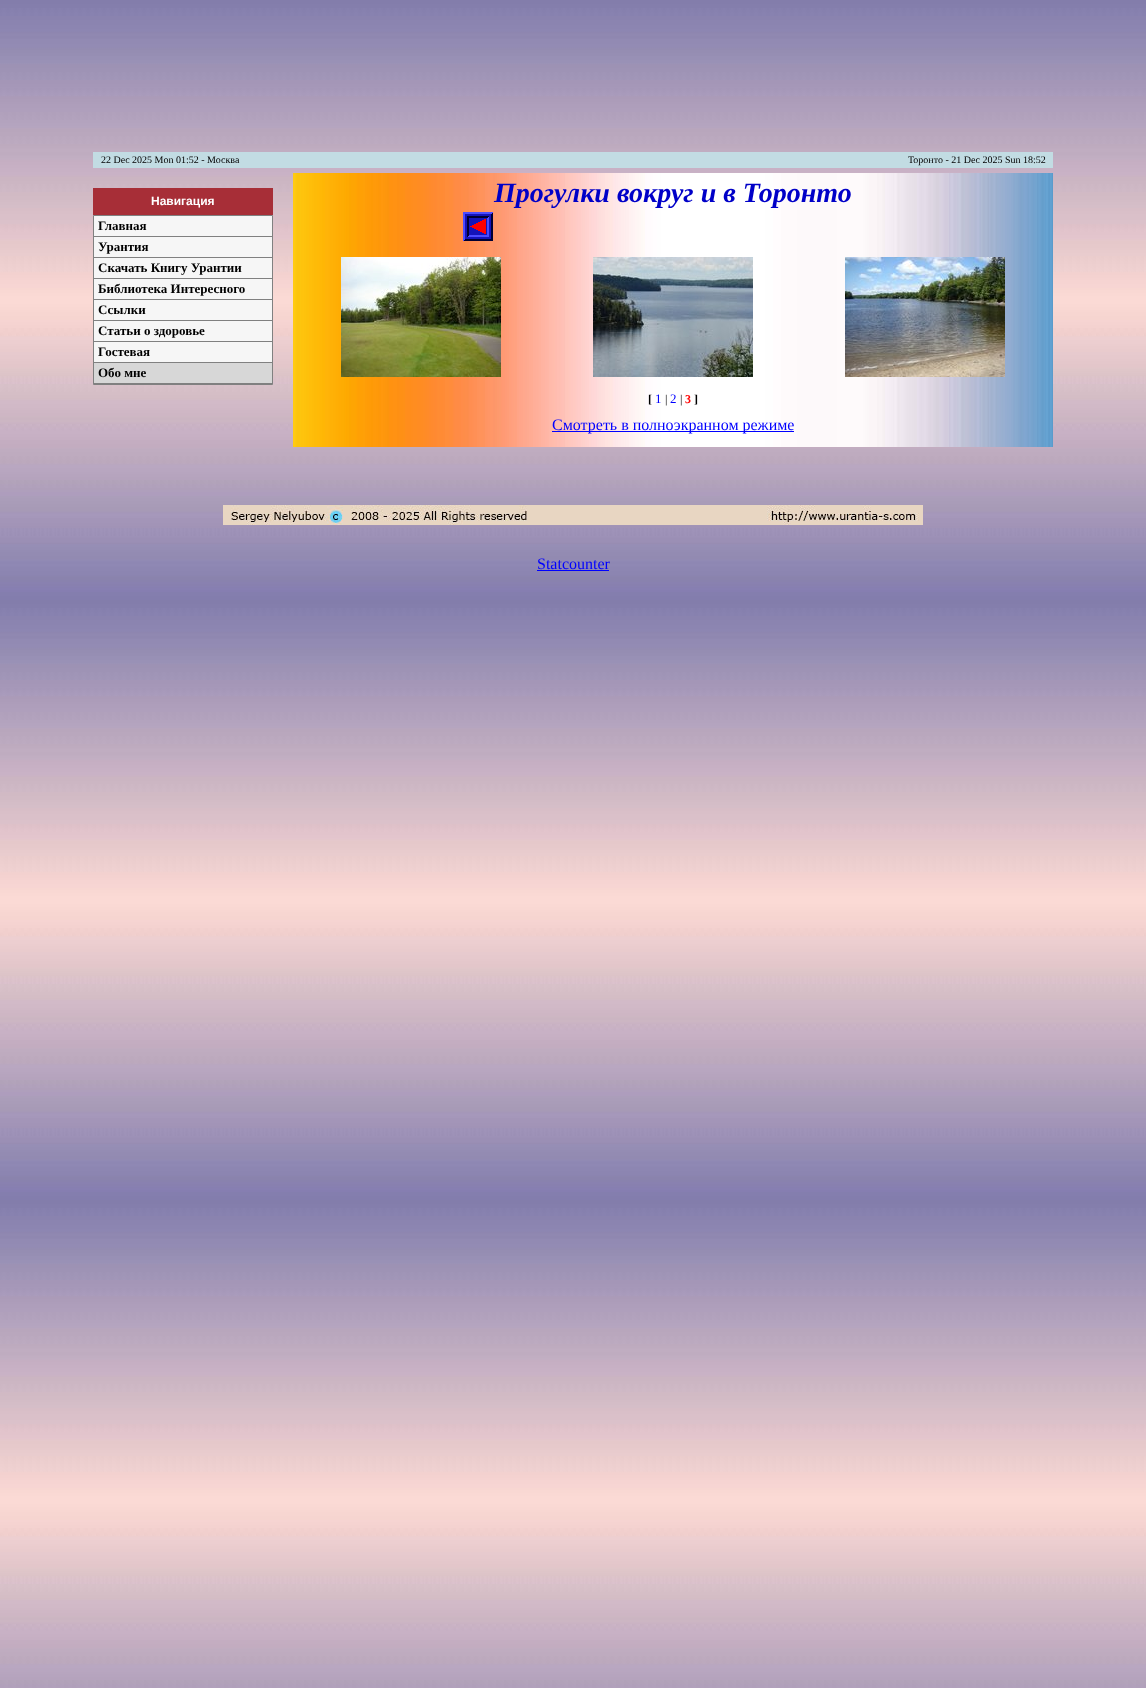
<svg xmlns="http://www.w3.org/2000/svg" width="1146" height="1688">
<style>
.a{font:10px Liberation Serif;fill:#000}
.b{font:bold 12px Liberation Sans;fill:#fff}
.c{font:bold 13px Liberation Serif;fill:#000}
.d{font:italic bold 28px Liberation Serif;fill:#0000c8}
.e{font:bold 12px Liberation Serif;fill:#000}
.f{font:13px Liberation Serif;fill:#00f}
.g{font:12px Liberation Serif;fill:#000}
.h{font:bold 12px Liberation Serif;fill:#f00}
.i{font:16px Liberation Serif;fill:#00f}
</style>
<rect width="100%" height="100%" fill="#fff"/>
<image href="1.png" x="0" y="0" width="1146" height="1688"/>
<path fill="#c2dce3" d="M93 152h960v16H93z"/>
<path fill="#a72e37" d="M93 188h180v27H93z"/>
<path fill="#f6f6f6" d="M94 216h178v146H94z"/>
<path fill="none" stroke="#808080" d="M93.5 215.5h179v169H93.5z"/>
<path fill="#808080" d="M94 236h178v1H94z"/>
<path fill="#808080" d="M94 257h178v1H94z"/>
<path fill="#808080" d="M94 278h178v1H94z"/>
<path fill="#808080" d="M94 299h178v1H94z"/>
<path fill="#808080" d="M94 320h178v1H94z"/>
<path fill="#808080" d="M94 341h178v1H94z"/>
<path fill="#808080" d="M94 362h178v1H94z"/>
<path fill="#d7d7d7" d="M94 363h178v20H94z"/>
<path fill="#808080" d="M94 383h178v1H94z"/>
<image href="2.png" x="293" y="173" width="760" height="274"/>
<image href="3.png" x="463" y="212" width="30" height="29"/>
<image href="4.png" x="341" y="257" width="160" height="120"/>
<image href="5.png" x="593" y="257" width="160" height="120"/>
<image href="6.png" x="845" y="257" width="160" height="120"/>
<path fill="#00f" d="M552 431h242v1H552z"/>
<image href="7.png" x="223" y="505" width="700" height="20"/>
<path fill="#00f" d="M537 570h72v1H537z"/>
<text class="a" x="101" y="163">22 Dec 2025 Mon 01:52 - Москва</text>
<text class="a" x="908" y="163">Торонто - 21 Dec 2025 Sun 18:52</text>
<text class="b" x="151" y="205">Навигация</text>
<text class="c" x="98" y="230">Главная</text>
<text class="c" x="98" y="251">Урантия</text>
<text class="c" x="98" y="272">Скачать Книгу Урантии</text>
<text class="c" x="98" y="293">Библиотека Интересного</text>
<text class="c" x="98" y="314">Ссылки</text>
<text class="c" x="98" y="335">Статьи о здоровье</text>
<text class="c" x="98" y="356">Гостевая</text>
<text class="c" x="98" y="377">Обо мне</text>
<text class="d" x="494" y="202">Прогулки вокруг и в Торонто</text>
<text class="e" x="648" y="403">[</text>
<text class="f" x="655" y="403">1</text>
<text class="g" x="665" y="403">|</text>
<text class="f" x="670" y="403">2</text>
<text class="g" x="680" y="403">|</text>
<text class="h" x="685" y="403">3</text>
<text class="e" x="694" y="403">]</text>
<text class="i" x="552" y="430">Смотреть в полноэкранном режиме</text>
<text class="i" x="537" y="569">Statcounter</text>
</svg>
